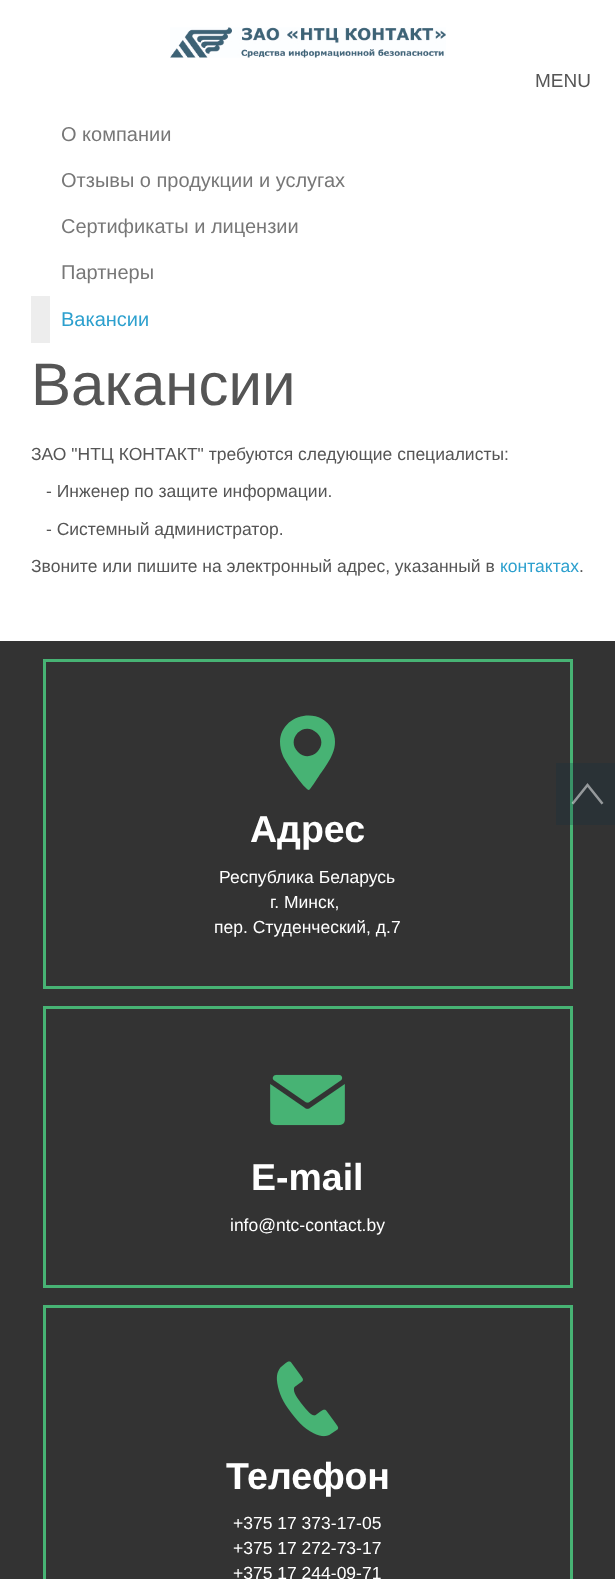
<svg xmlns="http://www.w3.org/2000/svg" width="615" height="1579">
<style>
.a{font:19px Liberation Sans;fill:#555}
.b{font:20px Liberation Sans;fill:#777}
.c{font:20px Liberation Sans;fill:#2da0ce}
.d{font:60px Liberation Sans;fill:#555}
.e{font:17.5px Liberation Sans;fill:#555}
.f{font:17.5px Liberation Sans;fill:#2da0ce}
.g{font:bold 37.5px Liberation Sans;fill:#fff}
.h{font:17.5px Liberation Sans;fill:#fff}
</style>
<rect width="100%" height="100%" fill="#fff"/>
<image href="1.png" x="170" y="27" width="276" height="31"/>
<path fill="#ededed" d="M31 296h19v47H31z"/>
<path fill="#333" d="M0 641h615v938H0z"/>
<path fill="none" stroke="#47b374" stroke-width="3" d="M44.5 660.5h527v327H44.5z"/>
<path fill="#0e313f40" d="M556 763h59v62H556z"/>
<path fill="#ffffff80" d="M587.5 783l16 20l-2 1.5l-14-17.5l-14 17.5l-2-1.5z"/>
<path fill="#47b374" d="M335 742c0 12-8 22-14 31c-1 1-10 16-12 17c-3 1-23-27-26-34c-2-5-3-9-3-14c0-27 39-37 52-13c2 4 3 9 3 13zm-18-9c-13-13-32 6-19 19c13 13 32-7 19-19z"/>
<path fill="none" stroke="#47b374" stroke-width="3" d="M44.5 1007.5h527v279H44.5z"/>
<image href="2.png" x="270" y="1074" width="75" height="52"/>
<path fill="none" stroke="#47b374" stroke-width="3" d="M44.5 1306.5h527v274H44.5z"/>
<image href="3.png" x="276" y="1361" width="63" height="76"/>
<text class="a" x="535" y="87">MENU</text>
<text class="b" x="61" y="141">О компании</text>
<text class="b" x="61" y="187">Отзывы о продукции и услугах</text>
<text class="b" x="61" y="233">Сертификаты и лицензии</text>
<text class="b" x="61" y="279">Партнеры</text>
<text class="c" x="61" y="326">Вакансии</text>
<text class="d" x="31" y="405">Вакансии</text>
<text class="e" x="31" y="460">ЗАО "НТЦ КОНТАКТ" требуются следующие специалисты:</text>
<text class="e" x="46" y="497">- Инженер по защите информации.</text>
<text class="e" x="46" y="535">- Системный администратор.</text>
<text class="e" x="31" y="572">Звоните или пишите на электронный адрес, указанный в</text>
<text class="f" x="500" y="572">контактах</text>
<text class="e" x="579" y="572">.</text>
<text class="g" x="250" y="842">Адрес</text>
<text class="h" x="219" y="883">Республика Беларусь</text>
<text class="h" x="270" y="908">г. Минск,</text>
<text class="h" x="214" y="933">пер. Студенческий, д.7</text>
<text class="g" x="251" y="1190">E-mail</text>
<text class="h" x="230" y="1231">info@ntc-contact.by</text>
<text class="g" x="226" y="1489">Телефон</text>
<text class="h" x="233" y="1529">+375 17 373-17-05</text>
<text class="h" x="233" y="1554">+375 17 272-73-17</text>
<text class="h" x="233" y="1579">+375 17 244-09-71</text>
</svg>
